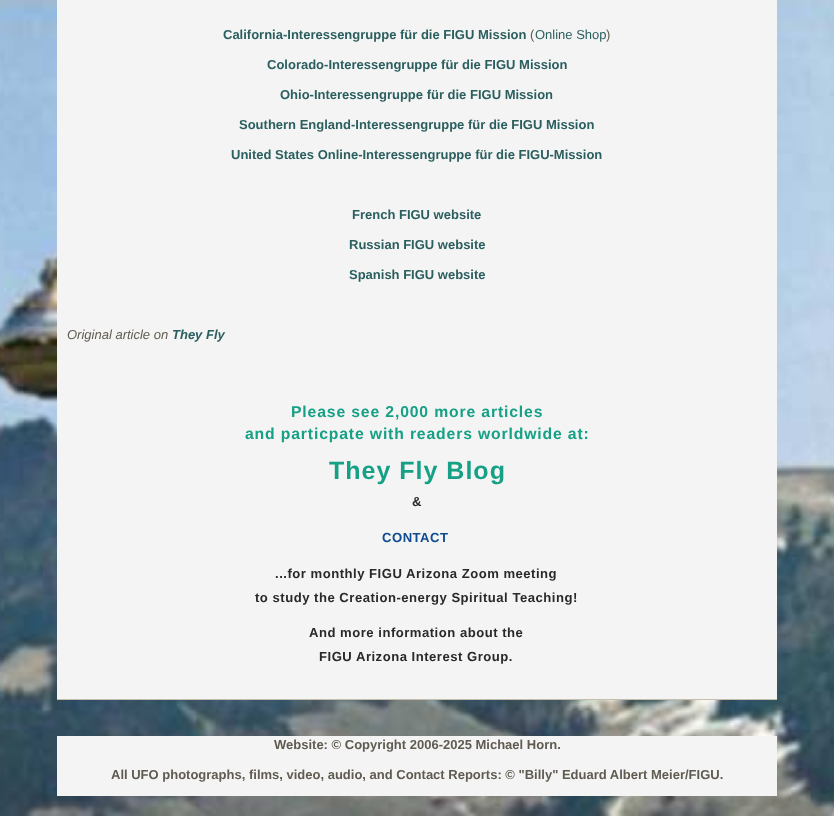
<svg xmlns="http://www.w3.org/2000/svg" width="834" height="816">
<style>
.a{font:bold 13px Liberation Sans;fill:#2b5e5e}
.b{font:13px Liberation Sans;fill:#5f5b50}
.c{font:13px Liberation Sans;fill:#2b5e5e}
.d{font:italic 13px Liberation Sans;fill:#5f5b50}
.e{font:italic bold 13px Liberation Sans;fill:#2b5e5e}
.f{font:bold 15.75px Liberation Sans;letter-spacing:0.85px;fill:#16a085}
.g{font:bold 25px Liberation Sans;letter-spacing:1px;fill:#16a085}
.h{font:bold 13.1px Liberation Sans;letter-spacing:0.5px;fill:#292929}
.i{font:bold 13.1px Liberation Sans;letter-spacing:0.5px;fill:#104a91}
.j{font:bold 13px Liberation Sans;fill:#5f5b50}
</style>
<rect width="100%" height="100%" fill="#fff"/>
<image href="1.png" x="0" y="0" width="834" height="816"/>
<path fill="#f4f4f4" d="M57 0h720v699H57z"/>
<path fill="#c5beaa" d="M57 699h720v1H57z"/>
<path fill="#f4f4f4" d="M57 736h720v60H57z"/>
<text class="a" x="223" y="39">California-Interessengruppe für die FIGU Mission</text>
<text class="b" x="530" y="39">(</text>
<text class="c" x="535" y="39">Online Shop</text>
<text class="b" x="606" y="39">)</text>
<text class="a" x="267" y="69">Colorado-Interessengruppe für die FIGU Mission</text>
<text class="a" x="280" y="99">Ohio-Interessengruppe für die FIGU Mission</text>
<text class="a" x="239" y="129">Southern England-Interessengruppe für die FIGU Mission</text>
<text class="a" x="231" y="159">United States Online-Interessengruppe für die FIGU-Mission</text>
<text class="a" x="352" y="219">French FIGU website</text>
<text class="a" x="349" y="249">Russian FIGU website</text>
<text class="a" x="349" y="279">Spanish FIGU website</text>
<text class="d" x="67" y="339">Original article on</text>
<text class="e" x="172" y="339">They Fly</text>
<text class="f" x="291" y="417">Please see 2,000 more articles</text>
<text class="f" x="245" y="439">and particpate with readers worldwide at:</text>
<text class="g" x="329" y="479">They Fly Blog</text>
<text class="h" x="412" y="506">&amp;</text>
<text class="i" x="382" y="542">CONTACT</text>
<text class="h" x="275" y="578">...for monthly FIGU Arizona Zoom meeting</text>
<text class="h" x="255" y="602">to study the Creation-energy Spiritual Teaching!</text>
<text class="h" x="309" y="637">And more information about the</text>
<text class="h" x="319" y="661">FIGU Arizona Interest Group.</text>
<text class="j" x="274" y="749">Website: © Copyright 2006-2025 Michael Horn.</text>
<text class="j" x="111" y="779">All UFO photographs, films, video, audio, and Contact Reports: © "Billy" Eduard Albert Meier/FIGU.</text>
</svg>
